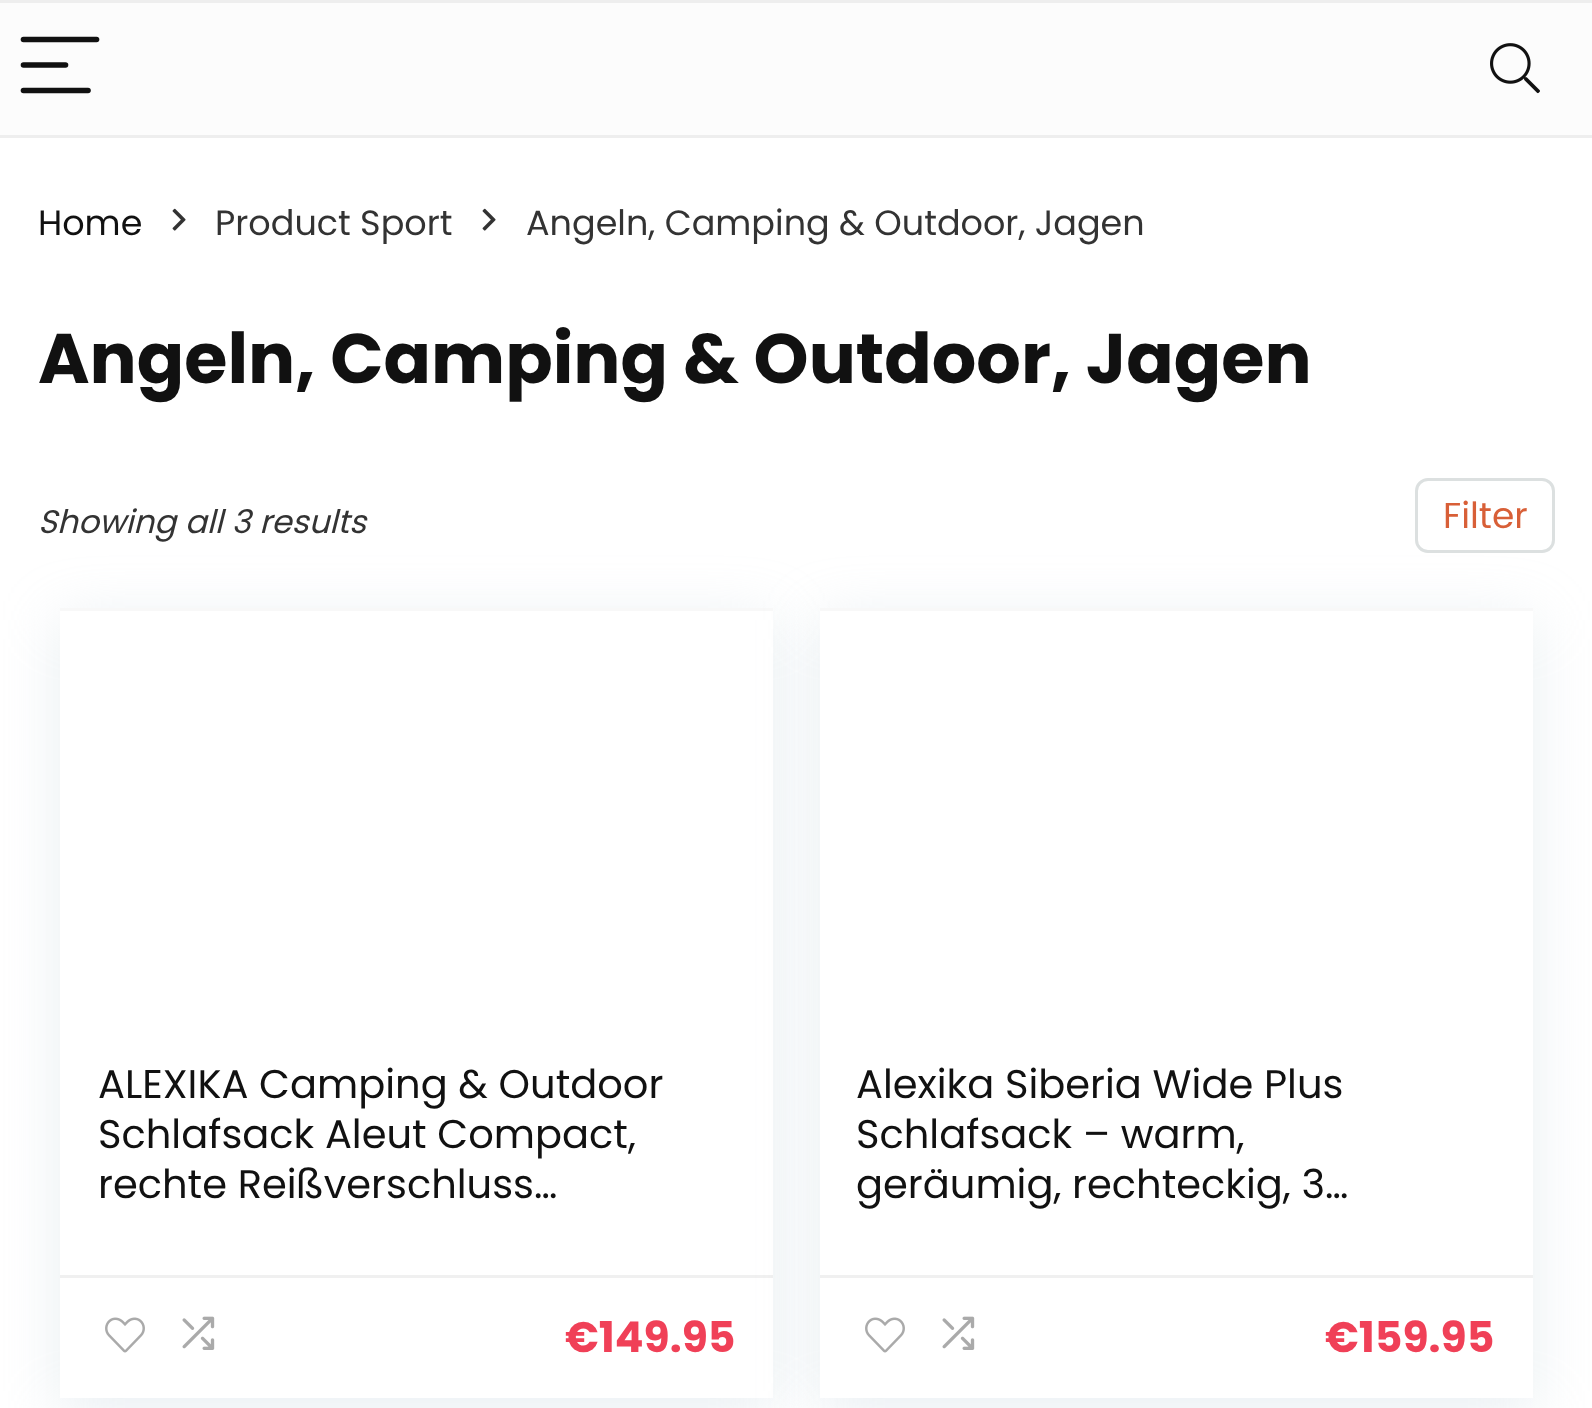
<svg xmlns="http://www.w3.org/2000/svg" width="1592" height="1408">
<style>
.a{font:35px Poppins;fill:#111}
.b{font:35px Poppins;fill:#333}
.c{font:bold 70px Poppins;fill:#111}
.d{font:italic 32.5px Poppins;fill:#333}
.e{font:36px Poppins;fill:#d85f37}
.f{font:40px Poppins;fill:#111}
.g{font:bold 42.5px Poppins;fill:#f04057}
</style>
<rect width="100%" height="100%" fill="#fff"/>
<path fill="#fcfcfc" d="M0 3h1592v132H0z"/>
<path fill="#eee" d="M0 0h1592v3H0z"/>
<path fill="#eee" d="M0 135h1592v3H0z"/>
<path fill="none" stroke="#111" stroke-width="5.6" stroke-linecap="round" d="M23.5 39.5h73"/>
<path fill="none" stroke="#111" stroke-width="5.6" stroke-linecap="round" d="M23.5 65h42"/>
<path fill="none" stroke="#111" stroke-width="5.6" stroke-linecap="round" d="M23.5 90.5h64.5"/>
<image href="1.png" x="1490" y="43" width="50" height="51"/>
<image href="2.png" x="172" y="208" width="14" height="23"/>
<image href="2.png" x="482" y="208" width="14" height="23"/>
<rect fill="none" stroke="#dce0e0" stroke-width="3" x="1416.5" y="479.5" width="137" height="72" rx="11.5"/>
<path fill="#bccfdb59" filter="blur(29px)" d="M60 620h713v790H60z"/>
<path fill="#fff" d="M60 611h713v787H60z"/>
<path fill="#f8f8f8" d="M60 608h713v3H60z"/>
<path fill="#f0f0f0" d="M60 1275h713v3H60z"/>
<image href="3.png" x="105" y="1317" width="40" height="36"/>
<image href="4.png" x="182" y="1316" width="33" height="34"/>
<path fill="#bccfdb59" filter="blur(29px)" d="M820 620h713v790H820z"/>
<path fill="#fff" d="M820 611h713v787H820z"/>
<path fill="#f8f8f8" d="M820 608h713v3H820z"/>
<path fill="#f0f0f0" d="M820 1275h713v3H820z"/>
<image href="3.png" x="865" y="1317" width="40" height="36"/>
<image href="4.png" x="942" y="1316" width="33" height="34"/>
<text class="a" x="38" y="235">Home</text>
<text class="b" x="215" y="235">Product Sport</text>
<text class="b" x="526" y="235">Angeln, Camping &amp; Outdoor, Jagen</text>
<text class="c" x="38" y="383">Angeln, Camping &amp; Outdoor, Jagen</text>
<text class="d" x="38" y="533">Showing all 3 results</text>
<text class="e" x="1443" y="528">Filter</text>
<text class="f" x="98" y="1098">ALEXIKA Camping &amp; Outdoor</text>
<text class="f" x="98" y="1148">Schlafsack Aleut Compact,</text>
<text class="f" x="98" y="1198">rechte Reißverschluss…</text>
<text class="g" x="565" y="1352">€149.95</text>
<text class="f" x="856" y="1098">Alexika Siberia Wide Plus</text>
<text class="f" x="856" y="1148">Schlafsack – warm,</text>
<text class="f" x="856" y="1198">geräumig, rechteckig, 3…</text>
<text class="g" x="1325" y="1352">€159.95</text>
</svg>
